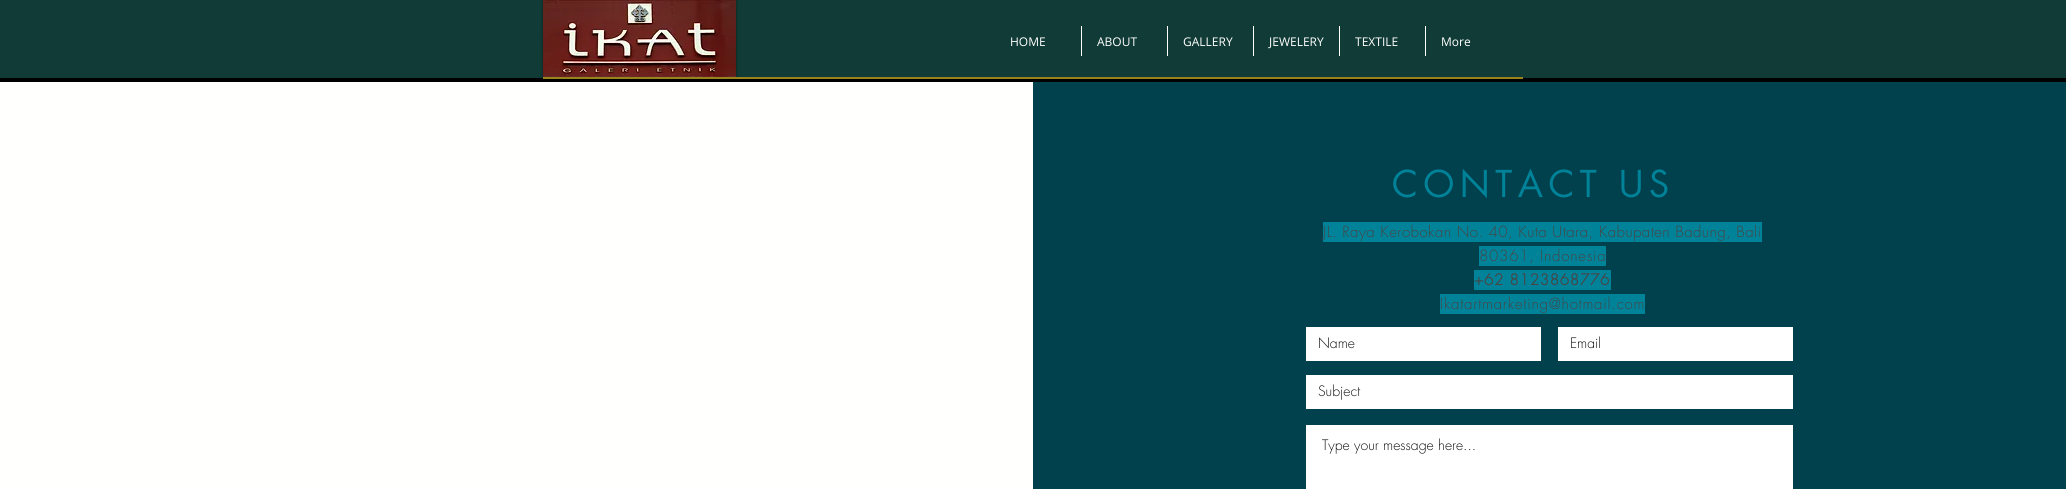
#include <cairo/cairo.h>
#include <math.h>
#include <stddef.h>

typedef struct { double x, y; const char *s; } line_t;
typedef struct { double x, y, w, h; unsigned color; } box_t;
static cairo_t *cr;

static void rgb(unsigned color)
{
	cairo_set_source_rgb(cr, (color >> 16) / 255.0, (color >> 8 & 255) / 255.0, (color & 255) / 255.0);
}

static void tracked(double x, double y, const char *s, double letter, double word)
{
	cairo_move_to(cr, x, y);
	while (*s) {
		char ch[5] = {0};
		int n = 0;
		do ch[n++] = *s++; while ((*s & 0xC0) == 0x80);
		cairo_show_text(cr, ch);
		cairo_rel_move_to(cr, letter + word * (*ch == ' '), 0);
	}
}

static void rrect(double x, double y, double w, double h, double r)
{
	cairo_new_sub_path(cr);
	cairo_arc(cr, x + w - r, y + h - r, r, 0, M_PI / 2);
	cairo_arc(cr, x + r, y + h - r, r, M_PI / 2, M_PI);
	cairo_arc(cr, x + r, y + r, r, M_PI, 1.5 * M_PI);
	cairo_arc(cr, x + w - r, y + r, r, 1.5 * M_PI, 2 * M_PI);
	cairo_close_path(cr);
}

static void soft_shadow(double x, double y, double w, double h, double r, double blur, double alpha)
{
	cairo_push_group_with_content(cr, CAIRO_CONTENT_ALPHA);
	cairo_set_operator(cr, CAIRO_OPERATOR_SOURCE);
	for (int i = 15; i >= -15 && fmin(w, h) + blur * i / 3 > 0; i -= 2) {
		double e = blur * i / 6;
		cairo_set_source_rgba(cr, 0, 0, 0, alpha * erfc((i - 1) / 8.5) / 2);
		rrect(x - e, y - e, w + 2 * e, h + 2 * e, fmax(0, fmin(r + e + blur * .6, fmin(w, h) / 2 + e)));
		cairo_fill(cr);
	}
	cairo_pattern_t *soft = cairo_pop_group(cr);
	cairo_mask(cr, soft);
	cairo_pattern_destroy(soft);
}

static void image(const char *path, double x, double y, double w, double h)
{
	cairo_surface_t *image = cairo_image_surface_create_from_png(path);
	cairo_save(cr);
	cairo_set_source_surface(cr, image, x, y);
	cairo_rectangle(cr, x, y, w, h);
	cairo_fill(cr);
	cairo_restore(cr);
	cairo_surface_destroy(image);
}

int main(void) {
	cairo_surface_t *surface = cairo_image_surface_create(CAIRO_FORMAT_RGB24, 2066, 489);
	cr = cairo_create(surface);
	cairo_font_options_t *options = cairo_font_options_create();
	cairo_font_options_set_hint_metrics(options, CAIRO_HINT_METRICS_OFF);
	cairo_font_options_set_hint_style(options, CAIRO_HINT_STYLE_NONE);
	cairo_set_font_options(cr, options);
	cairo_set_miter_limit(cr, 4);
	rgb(0x000000);
	cairo_paint(cr);
	rgb(0x113b36);
	cairo_rectangle(cr, 0, 0, 2066, 78);
	cairo_fill(cr);
	rgb(0x000000);
	soft_shadow(543, 1, 193, 78, 0, 1.5, 0.5);
	image("img/1.png", 543, 0, 193, 77);
	{
		static const box_t items[] = {
			{1081, 26, 1, 30, 0xffffff},
			{1167, 26, 1, 30, 0xffffff},
			{1253, 26, 1, 30, 0xffffff},
			{1339, 26, 1, 30, 0xffffff},
			{1425, 26, 1, 30, 0xffffff},
			{543, 77, 980, 2, 0x9a831b},
			{0, 82, 1033, 407, 0xfffffe},
			{1033, 82, 1033, 407, 0x00414d},
			{1323, 222, 439, 20, 0x008299},
			{1479, 246, 127, 20, 0x008299},
			{1474, 270, 137, 20, 0x008299},
			{1440, 294, 205, 20, 0x008299},
			{1306, 327, 235, 34, 0xffffff},
			{1558, 327, 235, 34, 0xffffff},
			{1306, 375, 487, 34, 0xffffff},
			{1306, 425, 487, 64, 0xffffff},
		};
		for (size_t i = 0; i < sizeof items / sizeof *items; i++) {
			rgb(items[i].color);
			cairo_rectangle(cr, items[i].x, items[i].y, items[i].w, items[i].h);
			cairo_fill(cr);
		}
	}
	cairo_select_font_face(cr, "Open Sans", CAIRO_FONT_SLANT_NORMAL, CAIRO_FONT_WEIGHT_NORMAL);
	cairo_set_font_size(cr, 12);
	{
		static const line_t items[] = {
			{1010, 46, "HOME"},
			{1097, 46, "ABOUT"},
			{1183, 46, "GALLERY"},
			{1269, 46, "JEWELERY"},
			{1355, 46, "TEXTILE"},
			{1441, 46, "More"},
		};
		for (size_t i = 0; i < sizeof items / sizeof *items; i++) {
			cairo_move_to(cr, items[i].x, items[i].y);
			cairo_show_text(cr, items[i].s);
		}
	}
	cairo_select_font_face(cr, "futura", CAIRO_FONT_SLANT_NORMAL, CAIRO_FONT_WEIGHT_NORMAL);
	cairo_set_font_size(cr, 36);
	rgb(0x008299);
	tracked(1392, 197, "CONTACT US", 5.5, 0);
	cairo_select_font_face(cr, "futura Light", CAIRO_FONT_SLANT_NORMAL, CAIRO_FONT_WEIGHT_NORMAL);
	cairo_set_font_size(cr, 15);
	rgb(0x464646);
	tracked(1323, 237, "JL. Raya Kerobokan No. 40, Kuta Utara, Kabupaten Badung, Bali", 0.45, 0);
	tracked(1479, 261, "80361, Indonesia", 0.75, 0);
	cairo_select_font_face(cr, "futura", CAIRO_FONT_SLANT_NORMAL, CAIRO_FONT_WEIGHT_BOLD);
	tracked(1474, 285, "+62 8123868776", 0.75, 0);
	cairo_select_font_face(cr, "futura Light", CAIRO_FONT_SLANT_NORMAL, CAIRO_FONT_WEIGHT_NORMAL);
	tracked(1440, 309, "Ikatartmarketing@hotmail.com", 0.75, 0);
	cairo_set_font_size(cr, 14);
	rgb(0x0f0f0f);
	{
		static const line_t items[] = {
			{1318, 348, "Name"},
			{1570, 348, "Email"},
			{1318, 396, "Subject"},
			{1322, 450, "Type your message here..."},
		};
		for (size_t i = 0; i < sizeof items / sizeof *items; i++) {
			cairo_move_to(cr, items[i].x, items[i].y);
			cairo_show_text(cr, items[i].s);
		}
	}
	cairo_surface_write_to_png(surface, "page.png");
	cairo_font_options_destroy(options);
	cairo_destroy(cr);
	cairo_surface_destroy(surface);
	return 0;
}
